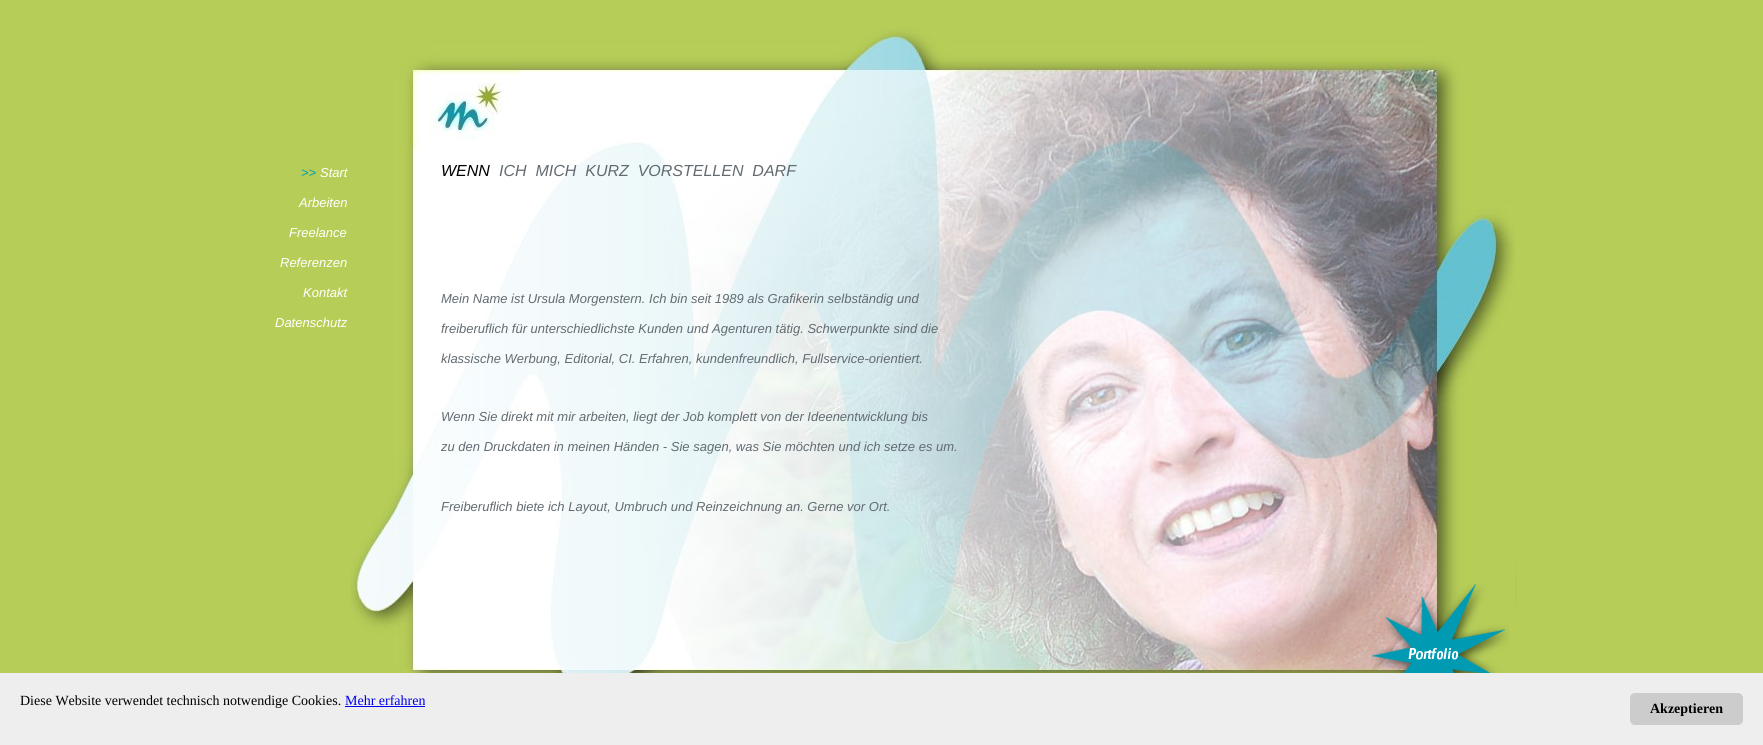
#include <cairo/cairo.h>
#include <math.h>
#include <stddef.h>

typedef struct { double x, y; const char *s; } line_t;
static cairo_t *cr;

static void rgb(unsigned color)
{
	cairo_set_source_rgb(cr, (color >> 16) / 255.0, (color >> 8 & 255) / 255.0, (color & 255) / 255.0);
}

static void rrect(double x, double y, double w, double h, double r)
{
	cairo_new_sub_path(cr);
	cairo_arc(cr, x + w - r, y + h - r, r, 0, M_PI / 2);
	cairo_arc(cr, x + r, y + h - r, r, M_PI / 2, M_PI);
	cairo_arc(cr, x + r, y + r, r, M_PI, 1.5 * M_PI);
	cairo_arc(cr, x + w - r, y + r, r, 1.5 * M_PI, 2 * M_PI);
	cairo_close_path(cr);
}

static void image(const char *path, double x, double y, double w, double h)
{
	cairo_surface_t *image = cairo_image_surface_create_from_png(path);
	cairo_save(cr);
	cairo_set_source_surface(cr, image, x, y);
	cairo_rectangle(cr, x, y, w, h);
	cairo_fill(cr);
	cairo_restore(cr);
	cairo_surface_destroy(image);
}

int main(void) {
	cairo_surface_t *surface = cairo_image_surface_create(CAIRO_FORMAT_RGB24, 1763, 745);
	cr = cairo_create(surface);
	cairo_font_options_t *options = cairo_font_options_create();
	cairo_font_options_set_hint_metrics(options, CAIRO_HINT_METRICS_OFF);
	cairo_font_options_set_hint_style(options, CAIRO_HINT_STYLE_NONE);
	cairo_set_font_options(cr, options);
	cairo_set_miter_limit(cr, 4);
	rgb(0xb6ce58);
	cairo_paint(cr);
	image("img/1.png", 350, 27, 1167, 646);
	image("img/2.png", 1371, 584, 138, 89);
	rgb(0xeeeeee);
	cairo_rectangle(cr, 0, 673, 1763, 72);
	cairo_fill(cr);
	rgb(0x0000ee);
	cairo_rectangle(cr, 345, 706, 80, 1);
	cairo_fill(cr);
	rgb(0xcccccc);
	rrect(1630, 693, 113, 32, 5);
	cairo_fill(cr);
	cairo_select_font_face(cr, "Liberation Sans", CAIRO_FONT_SLANT_ITALIC, CAIRO_FONT_WEIGHT_NORMAL);
	cairo_set_font_size(cr, 13);
	rgb(0x019bb3);
	cairo_move_to(cr, 301, 177);
	cairo_show_text(cr, ">>");
	rgb(0xffffff);
	{
		static const line_t items[] = {
			{320, 177, "Start"},
			{299, 207, "Arbeiten"},
			{289, 237, "Freelance"},
			{280, 267, "Referenzen"},
			{303, 297, "Kontakt"},
			{275, 327, "Datenschutz"},
		};
		for (size_t i = 0; i < sizeof items / sizeof *items; i++) {
			cairo_move_to(cr, items[i].x, items[i].y);
			cairo_show_text(cr, items[i].s);
		}
	}
	cairo_set_font_size(cr, 16);
	rgb(0x000000);
	cairo_move_to(cr, 441, 176);
	cairo_show_text(cr, "WENN");
	rgb(0x626b71);
	cairo_move_to(cr, 499, 176);
	cairo_show_text(cr, "ICH  MICH  KURZ  VORSTELLEN  DARF");
	cairo_set_font_size(cr, 13);
	{
		static const line_t items[] = {
			{441, 303, "Mein Name ist Ursula Morgenstern. Ich bin seit 1989 als Grafikerin selbständig und"},
			{441, 333, "freiberuflich für unterschiedlichste Kunden und Agenturen tätig. Schwerpunkte sind die"},
			{441, 363, "klassische Werbung, Editorial, CI. Erfahren, kundenfreundlich, Fullservice-orientiert."},
			{441, 421, "Wenn Sie direkt mit mir arbeiten, liegt der Job komplett von der Ideenentwicklung bis"},
			{441, 451, "zu den Druckdaten in meinen Händen - Sie sagen, was Sie möchten und ich setze es um."},
			{441, 511, "Freiberuflich biete ich Layout, Umbruch und Reinzeichnung an. Gerne vor Ort."},
		};
		for (size_t i = 0; i < sizeof items / sizeof *items; i++) {
			cairo_move_to(cr, items[i].x, items[i].y);
			cairo_show_text(cr, items[i].s);
		}
	}
	cairo_select_font_face(cr, "Liberation Serif", CAIRO_FONT_SLANT_NORMAL, CAIRO_FONT_WEIGHT_NORMAL);
	cairo_set_font_size(cr, 14);
	rgb(0x000000);
	cairo_move_to(cr, 20, 705);
	cairo_show_text(cr, "Diese Website verwendet technisch notwendige Cookies.");
	rgb(0x0000ee);
	cairo_move_to(cr, 345, 705);
	cairo_show_text(cr, "Mehr erfahren");
	cairo_select_font_face(cr, "Liberation Serif", CAIRO_FONT_SLANT_NORMAL, CAIRO_FONT_WEIGHT_BOLD);
	rgb(0x000000);
	cairo_move_to(cr, 1650, 713);
	cairo_show_text(cr, "Akzeptieren");
	cairo_surface_write_to_png(surface, "page.png");
	cairo_font_options_destroy(options);
	cairo_destroy(cr);
	cairo_surface_destroy(surface);
	return 0;
}
